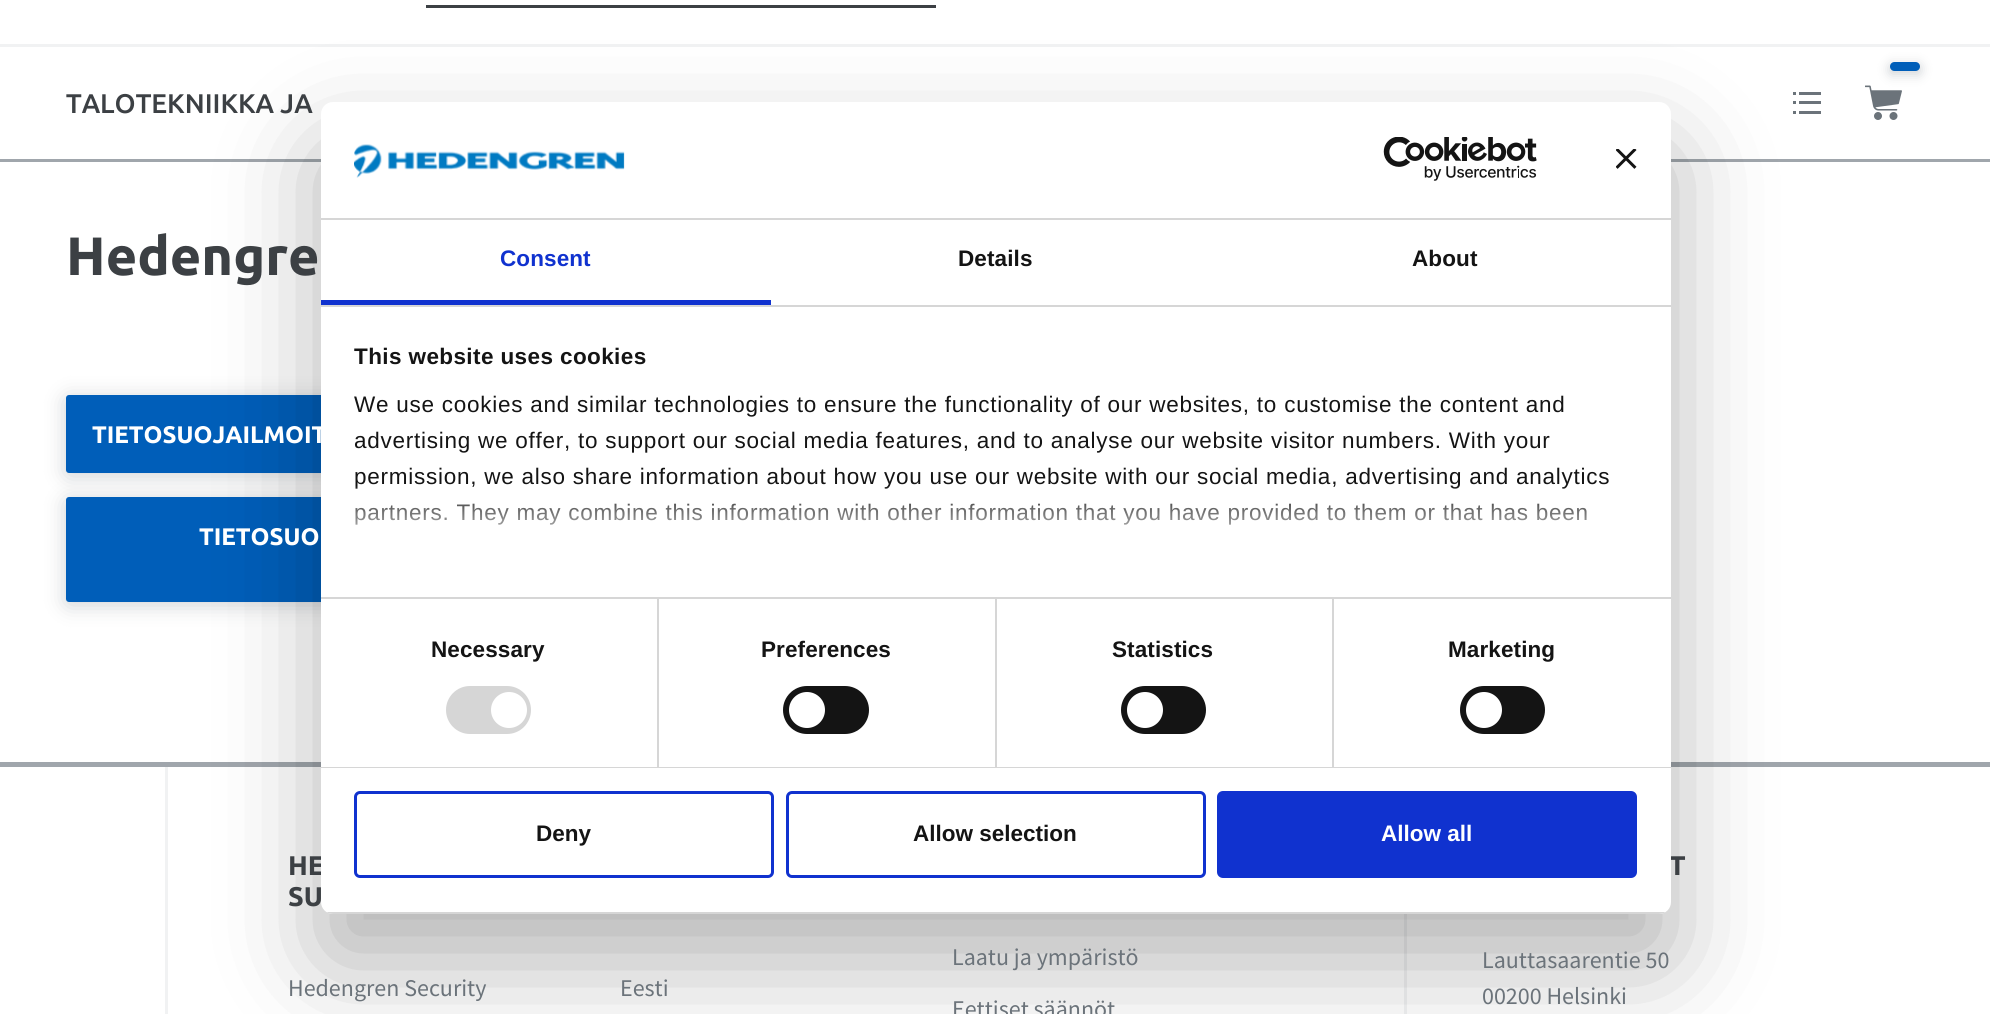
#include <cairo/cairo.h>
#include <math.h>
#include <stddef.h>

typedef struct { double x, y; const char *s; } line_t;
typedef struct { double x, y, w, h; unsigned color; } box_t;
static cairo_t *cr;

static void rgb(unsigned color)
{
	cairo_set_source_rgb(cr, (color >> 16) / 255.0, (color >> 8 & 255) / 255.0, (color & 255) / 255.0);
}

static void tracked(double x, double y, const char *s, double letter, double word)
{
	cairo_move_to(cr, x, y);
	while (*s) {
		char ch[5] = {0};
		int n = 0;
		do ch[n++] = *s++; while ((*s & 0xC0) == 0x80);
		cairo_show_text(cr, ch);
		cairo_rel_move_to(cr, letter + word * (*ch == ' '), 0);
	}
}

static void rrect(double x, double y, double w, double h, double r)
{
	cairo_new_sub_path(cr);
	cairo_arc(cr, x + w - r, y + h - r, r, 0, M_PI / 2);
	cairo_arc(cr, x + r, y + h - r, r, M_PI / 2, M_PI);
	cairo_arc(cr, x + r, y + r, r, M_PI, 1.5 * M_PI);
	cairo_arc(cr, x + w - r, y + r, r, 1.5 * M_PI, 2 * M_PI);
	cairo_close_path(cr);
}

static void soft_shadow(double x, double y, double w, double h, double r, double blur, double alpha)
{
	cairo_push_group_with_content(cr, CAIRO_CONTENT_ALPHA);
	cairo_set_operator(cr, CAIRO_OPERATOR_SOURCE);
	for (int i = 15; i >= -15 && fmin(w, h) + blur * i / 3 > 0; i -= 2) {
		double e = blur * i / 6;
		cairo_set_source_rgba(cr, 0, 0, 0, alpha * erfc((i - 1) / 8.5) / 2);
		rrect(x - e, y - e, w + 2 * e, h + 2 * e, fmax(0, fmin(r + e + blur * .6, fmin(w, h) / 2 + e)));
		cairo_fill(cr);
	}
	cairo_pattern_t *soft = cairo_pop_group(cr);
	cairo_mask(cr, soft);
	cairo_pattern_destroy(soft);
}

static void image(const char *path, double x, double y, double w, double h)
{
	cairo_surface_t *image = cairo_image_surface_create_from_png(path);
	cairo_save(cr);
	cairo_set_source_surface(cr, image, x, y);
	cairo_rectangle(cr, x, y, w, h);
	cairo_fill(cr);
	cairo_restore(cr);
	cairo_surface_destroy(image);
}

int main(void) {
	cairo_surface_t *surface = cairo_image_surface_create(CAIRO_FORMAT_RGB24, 1990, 1014);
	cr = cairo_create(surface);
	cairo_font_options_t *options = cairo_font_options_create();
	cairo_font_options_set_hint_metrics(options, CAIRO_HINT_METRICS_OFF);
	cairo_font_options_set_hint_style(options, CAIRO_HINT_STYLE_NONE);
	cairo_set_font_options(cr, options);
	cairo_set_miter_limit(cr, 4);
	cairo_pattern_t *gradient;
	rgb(0xffffff);
	cairo_paint(cr);
	{
		static const box_t items[] = {
			{0, 44, 1990, 3, 0xf1f2f3},
			{426, 5, 510, 3, 0x3c4044},
			{0, 159, 1990, 3, 0xa0a6ac},
			{1793, 92, 3, 3, 0x6b737a},
			{1799, 92, 22, 3, 0x6b737a},
			{1793, 101, 3, 3, 0x6b737a},
			{1799, 101, 22, 3, 0x6b737a},
			{1793, 111, 3, 3, 0x6b737a},
			{1799, 111, 22, 3, 0x6b737a},
		};
		for (size_t i = 0; i < sizeof items / sizeof *items; i++) {
			rgb(items[i].color);
			cairo_rectangle(cr, items[i].x, items[i].y, items[i].w, items[i].h);
			cairo_fill(cr);
		}
	}
	image("img/1.png", 1865, 85, 37, 35);
	rgb(0xa0a6ac);
	soft_shadow(1890, 65, 30, 9, 4.5, 6, 0.5);
	rgb(0x005eb9);
	rrect(1890, 62, 30, 9, 4.5);
	cairo_fill(cr);
	rgb(0xa0a6ac);
	soft_shadow(66, 398, 479, 78, 3, 10.5, 0.5);
	rgb(0x005eb9);
	rrect(66, 395, 479, 78, 3);
	cairo_fill(cr);
	rgb(0xa0a6ac);
	soft_shadow(66, 500, 1200, 105, 3, 10.5, 0.5);
	rgb(0x005eb9);
	rrect(66, 497, 1200, 105, 3);
	cairo_fill(cr);
	{
		static const box_t items[] = {
			{0, 762, 1990, 5, 0xa0a6ac},
			{165, 767, 3, 247, 0xf1f2f3},
			{1404, 914, 3, 100, 0xf1f2f3},
		};
		for (size_t i = 0; i < sizeof items / sizeof *items; i++) {
			rgb(items[i].color);
			cairo_rectangle(cr, items[i].x, items[i].y, items[i].w, items[i].h);
			cairo_fill(cr);
		}
	}
	rgb(0x000000);
	soft_shadow(321, 150, 1350, 812, 12, 51, 0.3);
	cairo_select_font_face(cr, "Ubuntu Medium", CAIRO_FONT_SLANT_NORMAL, CAIRO_FONT_WEIGHT_NORMAL);
	cairo_set_font_size(cr, 27);
	rgb(0x3c4044);
	cairo_move_to(cr, 66, 113);
	cairo_show_text(cr, "TALOTEKNIIKKA JA");
	cairo_select_font_face(cr, "Ubuntu", CAIRO_FONT_SLANT_NORMAL, CAIRO_FONT_WEIGHT_BOLD);
	cairo_set_font_size(cr, 54);
	cairo_move_to(cr, 66, 275);
	cairo_show_text(cr, "Hedengre");
	cairo_set_font_size(cr, 24);
	rgb(0xffffff);
	cairo_move_to(cr, 92, 443);
	cairo_show_text(cr, "TIETOSUOJAILMOIT");
	cairo_move_to(cr, 199, 545);
	cairo_show_text(cr, "TIETOSUO");
	cairo_set_font_size(cr, 27);
	rgb(0x3c4044);
	cairo_move_to(cr, 288, 875);
	cairo_show_text(cr, "HE");
	cairo_move_to(cr, 288, 906);
	cairo_show_text(cr, "SU");
	cairo_select_font_face(cr, "Source Sans Pro", CAIRO_FONT_SLANT_NORMAL, CAIRO_FONT_WEIGHT_NORMAL);
	cairo_set_font_size(cr, 24);
	rgb(0x6b737a);
	{
		static const line_t items[] = {
			{288, 996, "Hedengren Security"},
			{620, 996, "Eesti"},
			{952, 965, "Laatu ja ympäristö"},
			{952, 1017, "Eettiset säännöt"},
		};
		for (size_t i = 0; i < sizeof items / sizeof *items; i++) {
			cairo_move_to(cr, items[i].x, items[i].y);
			cairo_show_text(cr, items[i].s);
		}
	}
	cairo_select_font_face(cr, "Ubuntu", CAIRO_FONT_SLANT_NORMAL, CAIRO_FONT_WEIGHT_BOLD);
	cairo_set_font_size(cr, 27);
	rgb(0x3c4044);
	cairo_move_to(cr, 1669, 875);
	cairo_show_text(cr, "T");
	cairo_select_font_face(cr, "Source Sans Pro", CAIRO_FONT_SLANT_NORMAL, CAIRO_FONT_WEIGHT_NORMAL);
	cairo_set_font_size(cr, 24);
	rgb(0x6b737a);
	cairo_move_to(cr, 1482, 968);
	cairo_show_text(cr, "Lauttasaarentie 50");
	cairo_move_to(cr, 1482, 1004);
	cairo_show_text(cr, "00200 Helsinki");
	rgb(0xffffff);
	rrect(321, 102, 1350, 812, 12);
	cairo_fill(cr);
	rgb(0xd6d6d6);
	cairo_rectangle(cr, 321, 218, 1350, 2);
	cairo_fill(cr);
	image("img/2.png", 354, 144, 271, 34);
	image("img/3.png", 1383, 137, 154, 44);
	image("img/4.png", 1616, 149, 21, 20);
	cairo_rectangle(cr, 321, 305, 1350, 2);
	cairo_fill(cr);
	rgb(0x1032cf);
	cairo_rectangle(cr, 321, 300, 450, 5);
	cairo_fill(cr);
	cairo_select_font_face(cr, "Liberation Sans", CAIRO_FONT_SLANT_NORMAL, CAIRO_FONT_WEIGHT_BOLD);
	cairo_set_font_size(cr, 22.5);
	tracked(500, 266, "Consent", 0.1, 0);
	rgb(0x141414);
	tracked(958, 266, "Details", 0.1, 0);
	tracked(1412, 266, "About", 0.1, 0);
	rgb(0xd6d6d6);
	cairo_rectangle(cr, 321, 597, 1350, 2);
	cairo_fill(cr);
	rgb(0x141414);
	tracked(354, 364, "This website uses cookies", 0.4, 0);
	cairo_select_font_face(cr, "Liberation Sans", CAIRO_FONT_SLANT_NORMAL, CAIRO_FONT_WEIGHT_NORMAL);
	{
		static const line_t items[] = {
			{354, 412, "We use cookies and similar technologies to ensure the functionality of our websites, to customise the content and"},
			{354, 448, "advertising we offer, to support our social media features, and to analyse our website visitor numbers. With your"},
			{354, 484, "permission, we also share information about how you use our website with our social media, advertising and analytics"},
			{354, 520, "partners. They may combine this information with other information that you have provided to them or that has been"},
		};
		for (size_t i = 0; i < sizeof items / sizeof *items; i++) {
			tracked(items[i].x, items[i].y, items[i].s, 0.75, 0);
		}
	}
	gradient = cairo_pattern_create_linear(980, 596, 980, 484);
	cairo_pattern_add_color_stop_rgba(gradient, 0, 1, 1, 1, 1);
	cairo_pattern_add_color_stop_rgba(gradient, 0.5, 1, 1, 1, 0.8);
	cairo_pattern_add_color_stop_rgba(gradient, 1, 1, 1, 1, 0);
	cairo_set_source(cr, gradient);
	cairo_pattern_destroy(gradient);
	cairo_rectangle(cr, 355, 486, 1232, 39);
	cairo_fill(cr);
	rgb(0xd6d6d6);
	cairo_rectangle(cr, 321, 767, 1350, 1);
	cairo_fill(cr);
	cairo_rectangle(cr, 657, 599, 2, 168);
	cairo_fill(cr);
	cairo_select_font_face(cr, "Liberation Sans", CAIRO_FONT_SLANT_NORMAL, CAIRO_FONT_WEIGHT_BOLD);
	rgb(0x141414);
	tracked(431, 657, "Necessary", 0.1, 0);
	rgb(0xd6d6d6);
	rrect(446, 686, 85, 48, 24);
	cairo_fill(cr);
	rgb(0xffffff);
	cairo_arc(cr, 509, 710, 18, 0, 2 * M_PI);
	cairo_fill(cr);
	rgb(0xd6d6d6);
	cairo_rectangle(cr, 995, 599, 2, 168);
	cairo_fill(cr);
	rgb(0x141414);
	tracked(761, 657, "Preferences", 0.1, 0);
	rrect(783, 686, 86, 48, 24);
	cairo_fill(cr);
	rgb(0xffffff);
	cairo_arc(cr, 807, 710, 18, 0, 2 * M_PI);
	cairo_fill(cr);
	rgb(0xd6d6d6);
	cairo_rectangle(cr, 1332, 599, 2, 168);
	cairo_fill(cr);
	rgb(0x141414);
	tracked(1112, 657, "Statistics", 0.1, 0);
	rrect(1121, 686, 85, 48, 24);
	cairo_fill(cr);
	rgb(0xffffff);
	cairo_arc(cr, 1145, 710, 18, 0, 2 * M_PI);
	cairo_fill(cr);
	rgb(0x141414);
	tracked(1448, 657, "Marketing", 0.1, 0);
	rrect(1460, 686, 85, 48, 24);
	cairo_fill(cr);
	rgb(0xffffff);
	cairo_arc(cr, 1484, 710, 18, 0, 2 * M_PI);
	cairo_fill(cr);
	cairo_save(cr);
	rrect(321, 102, 1350, 812, 12);
	cairo_clip(cr);
	rgb(0xd6d6d6);
	cairo_rectangle(cr, 321, 912, 1350, 2);
	cairo_fill(cr);
	cairo_restore(cr);
	rrect(355.5, 792.5, 417, 84, 4.5);
	rgb(0x1032cf);
	cairo_set_line_width(cr, 3);
	cairo_stroke(cr);
	rgb(0x141414);
	cairo_move_to(cr, 536, 841);
	cairo_show_text(cr, "Deny");
	rrect(787.5, 792.5, 417, 84, 4.5);
	rgb(0x1032cf);
	cairo_stroke(cr);
	rgb(0x141414);
	cairo_move_to(cr, 913, 841);
	cairo_show_text(cr, "Allow selection");
	rgb(0x1032cf);
	rrect(1218.5, 792.5, 417, 84, 4.5);
	cairo_fill_preserve(cr);
	cairo_stroke(cr);
	rgb(0xffffff);
	cairo_move_to(cr, 1381, 841);
	cairo_show_text(cr, "Allow all");
	cairo_surface_write_to_png(surface, "page.png");
	cairo_font_options_destroy(options);
	cairo_destroy(cr);
	cairo_surface_destroy(surface);
	return 0;
}
